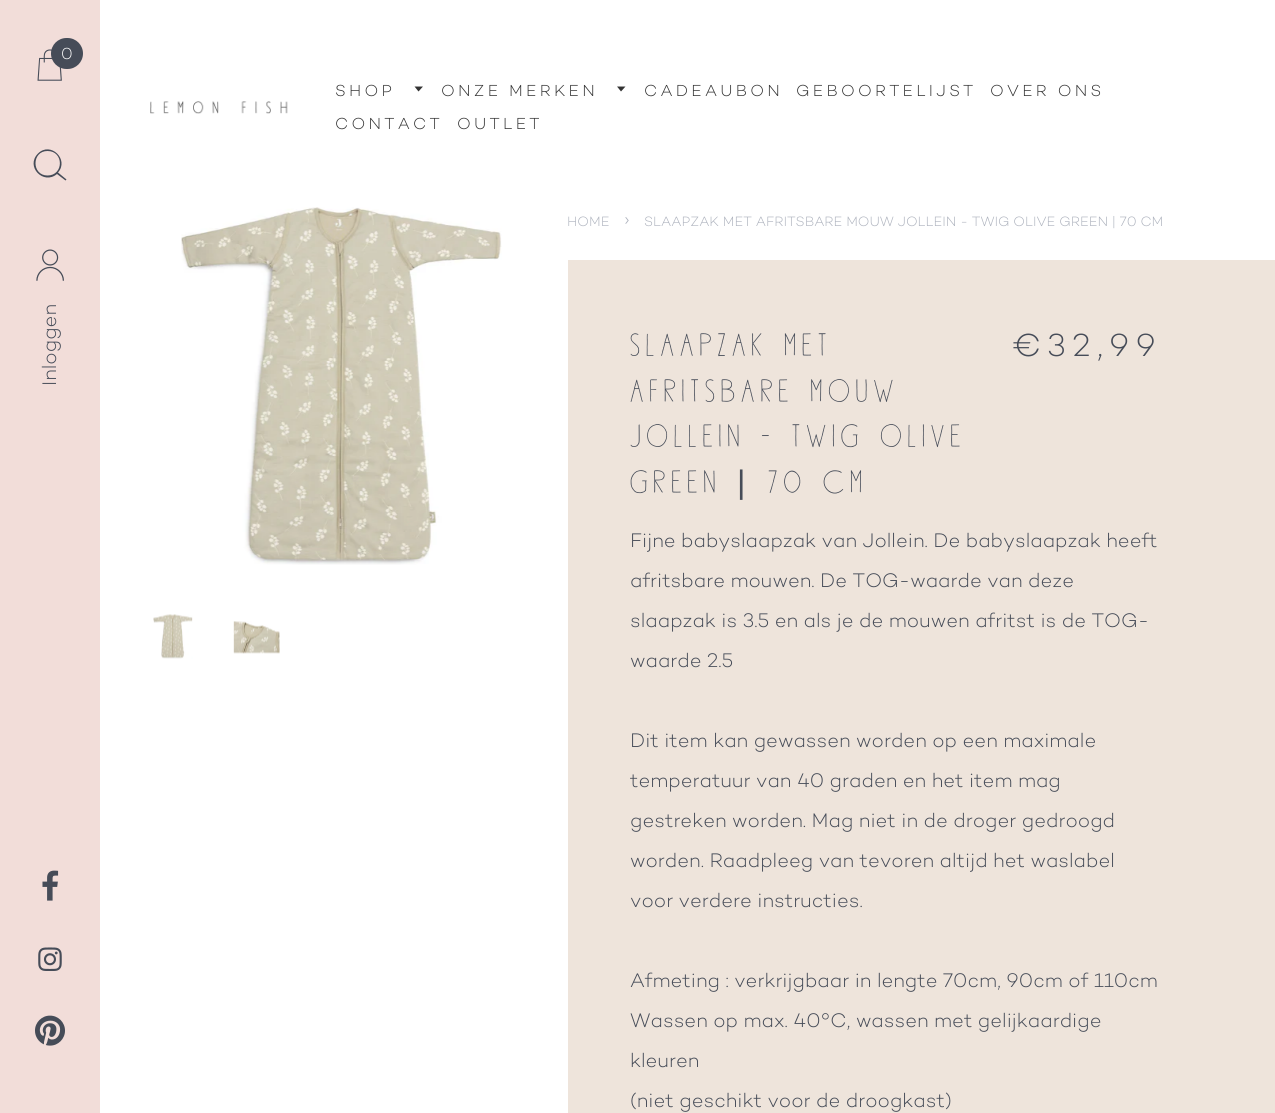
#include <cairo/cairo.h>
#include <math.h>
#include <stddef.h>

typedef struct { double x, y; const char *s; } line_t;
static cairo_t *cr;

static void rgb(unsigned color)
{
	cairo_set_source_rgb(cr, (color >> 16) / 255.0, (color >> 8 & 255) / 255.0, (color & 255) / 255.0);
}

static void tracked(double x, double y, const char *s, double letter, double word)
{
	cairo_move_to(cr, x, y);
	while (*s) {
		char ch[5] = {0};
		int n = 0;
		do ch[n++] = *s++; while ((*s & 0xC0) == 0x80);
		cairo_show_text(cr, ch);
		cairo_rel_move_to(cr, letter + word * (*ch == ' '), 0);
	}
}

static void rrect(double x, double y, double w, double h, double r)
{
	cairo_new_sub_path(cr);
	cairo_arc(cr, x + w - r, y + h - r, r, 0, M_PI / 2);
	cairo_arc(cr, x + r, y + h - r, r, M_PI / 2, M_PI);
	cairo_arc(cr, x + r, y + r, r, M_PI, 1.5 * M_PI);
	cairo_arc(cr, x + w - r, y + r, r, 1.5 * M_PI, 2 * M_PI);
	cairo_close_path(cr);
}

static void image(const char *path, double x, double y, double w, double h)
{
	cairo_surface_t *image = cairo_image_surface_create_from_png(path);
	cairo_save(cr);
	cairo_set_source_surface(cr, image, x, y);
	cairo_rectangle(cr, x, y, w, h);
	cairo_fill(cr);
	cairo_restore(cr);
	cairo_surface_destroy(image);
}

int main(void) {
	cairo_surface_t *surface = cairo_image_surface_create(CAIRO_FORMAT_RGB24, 1275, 1113);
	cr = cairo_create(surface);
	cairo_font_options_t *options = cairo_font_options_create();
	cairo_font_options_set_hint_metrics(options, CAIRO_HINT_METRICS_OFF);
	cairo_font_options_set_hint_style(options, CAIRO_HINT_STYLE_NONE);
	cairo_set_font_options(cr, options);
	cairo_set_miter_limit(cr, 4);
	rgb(0xffffff);
	cairo_paint(cr);
	rgb(0xf2ddd9);
	cairo_rectangle(cr, 0, 0, 100, 1113);
	cairo_fill(cr);
	image("img/1.png", 37, 49, 25, 32);
	rgb(0x464c58);
	rrect(51, 38, 32, 31, 15.5);
	cairo_fill(cr);
	cairo_new_path(cr);
	cairo_move_to(cr, 58, 172.5);
	cairo_curve_to(cr, 69.5, 159.5, 50.5, 141, 38, 153.5);
	cairo_curve_to(cr, 25, 166.5, 43.5, 185.5, 57, 174);
	cairo_line_to(cr, 65.5, 180.5);
	cairo_line_to(cr, 66.5, 179.5);
	cairo_close_path(cr);
	cairo_move_to(cr, 47.5, 175.5);
	cairo_curve_to(cr, 31.5, 175.5, 31.5, 151, 47.5, 151);
	cairo_curve_to(cr, 64, 151, 64, 175.5, 47.5, 175.5);
	cairo_close_path(cr);
	cairo_fill(cr);
	image("img/2.png", 36, 249, 28, 32);
	image("img/3.png", 42, 870, 17, 31);
	image("img/4.png", 38, 947, 24, 24);
	image("img/5.png", 35, 1015, 30, 31);
	image("img/6.png", 150, 101, 138, 13);
	rgb(0x333333);
	cairo_new_path(cr);
	cairo_move_to(cr, 414.5, 86.5);
	cairo_line_to(cr, 418.5, 91.5);
	cairo_line_to(cr, 423, 86.5);
	cairo_close_path(cr);
	cairo_fill(cr);
	cairo_new_path(cr);
	cairo_move_to(cr, 617, 86.5);
	cairo_line_to(cr, 621, 91.5);
	cairo_line_to(cr, 625.5, 86.5);
	cairo_close_path(cr);
	cairo_fill(cr);
	image("img/7.png", 181, 207, 321, 358);
	image("img/8.png", 153, 614, 40, 45);
	image("img/9.png", 233, 621, 47, 33);
	rgb(0xeee4db);
	cairo_rectangle(cr, 568, 260, 707, 853);
	cairo_fill(cr);
	cairo_select_font_face(cr, "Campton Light", CAIRO_FONT_SLANT_NORMAL, CAIRO_FONT_WEIGHT_NORMAL);
	cairo_set_font_size(cr, 16.25);
	rgb(0xffffff);
	cairo_move_to(cr, 61, 59);
	cairo_show_text(cr, "0");
	cairo_set_font_size(cr, 20);
	rgb(0x464c58);
	cairo_save(cr);
	cairo_translate(cr, 56, 386);
	cairo_rotate(cr, -90 * M_PI / 180);
	cairo_move_to(cr, 0, 0);
	cairo_show_text(cr, "Inloggen");
	cairo_restore(cr);
	cairo_set_font_size(cr, 16.25);
	rgb(0x333333);
	{
		static const line_t items[] = {
			{335, 96, "SHOP"},
			{441, 96, "ONZE MERKEN"},
			{644, 96, "CADEAUBON"},
			{796, 96, "GEBOORTELIJST"},
			{990, 96, "OVER ONS"},
			{335, 129, "CONTACT"},
			{457, 129, "OUTLET"},
		};
		for (size_t i = 0; i < sizeof items / sizeof *items; i++) {
			tracked(items[i].x, items[i].y, items[i].s, 3.25, 0);
		}
	}
	cairo_set_font_size(cr, 13.75);
	rgb(0xadb2bd);
	cairo_move_to(cr, 567, 226);
	cairo_show_text(cr, "HOME");
	cairo_set_font_size(cr, 22);
	cairo_move_to(cr, 624, 226);
	cairo_show_text(cr, "›");
	cairo_set_font_size(cr, 13.75);
	cairo_move_to(cr, 644, 226);
	cairo_show_text(cr, "SLAAPZAK MET AFRITSBARE MOUW JOLLEIN - TWIG OLIVE GREEN | 70 CM");
	cairo_select_font_face(cr, "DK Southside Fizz", CAIRO_FONT_SLANT_NORMAL, CAIRO_FONT_WEIGHT_NORMAL);
	cairo_set_font_size(cr, 32.5);
	rgb(0x464c58);
	{
		static const line_t items[] = {
			{630, 356, "SLAAPZAK MET"},
			{630, 402, "AFRITSBARE MOUW"},
			{630, 447, "JOLLEIN - TWIG OLIVE"},
			{630, 493, "GREEN"},
		};
		for (size_t i = 0; i < sizeof items / sizeof *items; i++) {
			tracked(items[i].x, items[i].y, items[i].s, 6.25, 0);
		}
	}
	cairo_select_font_face(cr, "Liberation Sans", CAIRO_FONT_SLANT_NORMAL, CAIRO_FONT_WEIGHT_NORMAL);
	tracked(737, 493, "|", 6.25, 0);
	cairo_select_font_face(cr, "DK Southside Fizz", CAIRO_FONT_SLANT_NORMAL, CAIRO_FONT_WEIGHT_NORMAL);
	tracked(768, 493, "70 CM", 6.25, 0);
	cairo_select_font_face(cr, "Campton Light", CAIRO_FONT_SLANT_NORMAL, CAIRO_FONT_WEIGHT_NORMAL);
	tracked(1012, 356, "€32,99", 6.25, 0);
	cairo_set_font_size(cr, 20);
	{
		static const line_t items[] = {
			{630, 547, "Fijne babyslaapzak van Jollein. De babyslaapzak heeft"},
			{630, 587, "afritsbare mouwen. De TOG-waarde van deze"},
			{630, 627, "slaapzak is 3.5 en als je de mouwen afritst is de TOG-"},
			{630, 667, "waarde 2.5"},
			{630, 747, "Dit item kan gewassen worden op een maximale"},
			{630, 787, "temperatuur van 40 graden en het item mag"},
			{630, 827, "gestreken worden. Mag niet in de droger gedroogd"},
			{630, 867, "worden. Raadpleeg van tevoren altijd het waslabel"},
			{630, 907, "voor verdere instructies."},
			{630, 987, "Afmeting : verkrijgbaar in lengte 70cm, 90cm of 110cm"},
			{630, 1027, "Wassen op max. 40°C, wassen met gelijkaardige"},
			{630, 1067, "kleuren"},
			{630, 1107, "(niet geschikt voor de droogkast)"},
		};
		for (size_t i = 0; i < sizeof items / sizeof *items; i++) {
			cairo_move_to(cr, items[i].x, items[i].y);
			cairo_show_text(cr, items[i].s);
		}
	}
	cairo_surface_write_to_png(surface, "page.png");
	cairo_font_options_destroy(options);
	cairo_destroy(cr);
	cairo_surface_destroy(surface);
	return 0;
}
